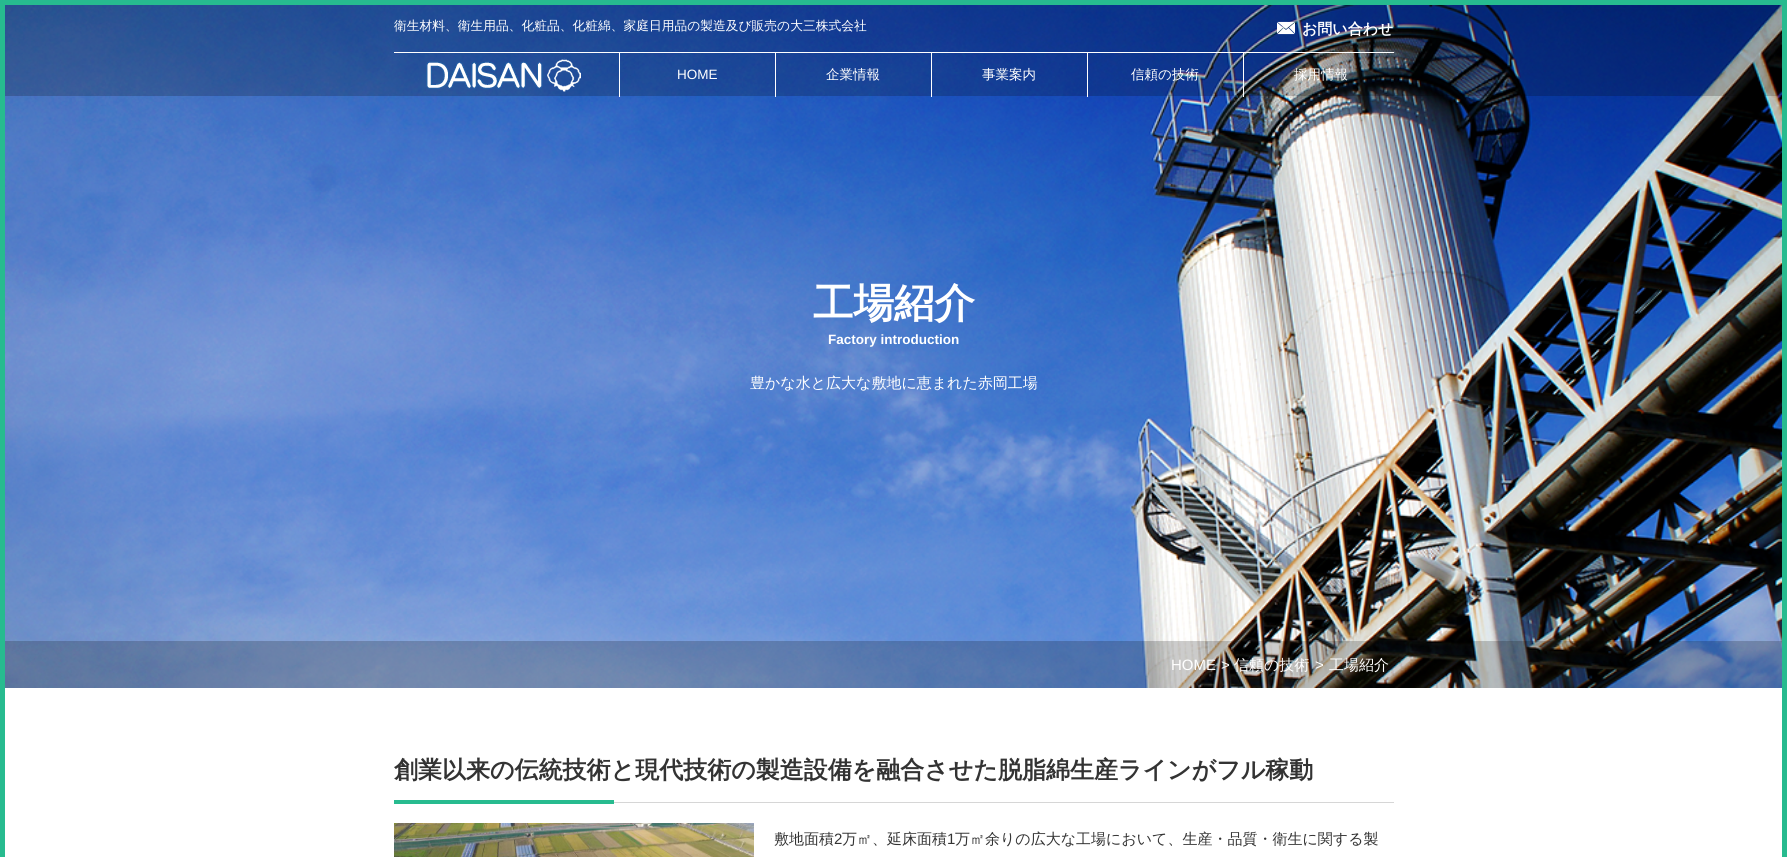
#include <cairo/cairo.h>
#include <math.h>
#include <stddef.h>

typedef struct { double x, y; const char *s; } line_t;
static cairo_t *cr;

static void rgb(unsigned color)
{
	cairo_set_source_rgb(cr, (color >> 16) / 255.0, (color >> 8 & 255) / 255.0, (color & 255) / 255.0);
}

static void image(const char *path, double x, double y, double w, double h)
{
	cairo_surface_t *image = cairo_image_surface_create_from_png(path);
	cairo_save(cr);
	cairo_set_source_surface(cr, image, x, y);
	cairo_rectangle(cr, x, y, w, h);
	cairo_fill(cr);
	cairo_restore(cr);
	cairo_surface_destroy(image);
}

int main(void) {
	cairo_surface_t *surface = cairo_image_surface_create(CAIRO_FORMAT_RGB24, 1787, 857);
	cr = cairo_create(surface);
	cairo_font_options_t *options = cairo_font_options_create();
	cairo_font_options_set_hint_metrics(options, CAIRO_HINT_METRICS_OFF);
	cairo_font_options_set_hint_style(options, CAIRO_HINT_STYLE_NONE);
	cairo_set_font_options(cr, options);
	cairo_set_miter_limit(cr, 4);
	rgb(0xffffff);
	cairo_paint(cr);
	cairo_rectangle(cr, 2.5, 2.5, 1782, 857);
	rgb(0x27bb8f);
	cairo_set_line_width(cr, 5);
	cairo_stroke(cr);
	image("img/1.png", 5, 5, 1777, 683);
	cairo_set_source_rgba(cr, 0, 0, 0, 0.2);
	cairo_rectangle(cr, 5, 5, 1777, 91);
	cairo_fill(cr);
	rgb(0xffffff);
	cairo_rectangle(cr, 394, 52, 1000, 1);
	cairo_fill(cr);
	image("img/2.png", 1277, 21, 18, 14);
	image("img/3.png", 426, 58, 155, 34);
	cairo_rectangle(cr, 619, 53, 1, 44);
	cairo_fill(cr);
	cairo_rectangle(cr, 775, 53, 1, 44);
	cairo_fill(cr);
	cairo_rectangle(cr, 931, 53, 1, 44);
	cairo_fill(cr);
	cairo_rectangle(cr, 1087, 53, 1, 44);
	cairo_fill(cr);
	cairo_rectangle(cr, 1243, 53, 1, 44);
	cairo_fill(cr);
	cairo_set_source_rgba(cr, 0, 0, 0, 0.2);
	cairo_rectangle(cr, 5, 641, 1777, 47);
	cairo_fill(cr);
	rgb(0xd6d6d6);
	cairo_rectangle(cr, 614, 802, 780, 1);
	cairo_fill(cr);
	rgb(0x27bb8f);
	cairo_rectangle(cr, 394, 800, 220, 4);
	cairo_fill(cr);
	image("img/4.png", 394, 823, 360, 34);
	cairo_save(cr);
	cairo_rectangle(cr, 394, 5, 1000, 47);
	cairo_clip(cr);
	cairo_select_font_face(cr, "WenQuanYi Zen Hei Medium", CAIRO_FONT_SLANT_NORMAL, CAIRO_FONT_WEIGHT_NORMAL);
	cairo_set_font_size(cr, 12.75);
	rgb(0xffffff);
	cairo_move_to(cr, 394, 30);
	cairo_show_text(cr, "衛生材料、衛生用品、化粧品、化粧綿、家庭日用品の製造及び販売の大三株式会社");
	cairo_restore(cr);
	cairo_select_font_face(cr, "WenQuanYi Zen Hei", CAIRO_FONT_SLANT_NORMAL, CAIRO_FONT_WEIGHT_BOLD);
	cairo_set_font_size(cr, 15);
	rgb(0xffffff);
	cairo_move_to(cr, 1302, 34);
	cairo_show_text(cr, "お問い合わせ");
	cairo_select_font_face(cr, "Liberation Sans", CAIRO_FONT_SLANT_NORMAL, CAIRO_FONT_WEIGHT_NORMAL);
	cairo_set_font_size(cr, 13.5);
	cairo_move_to(cr, 677, 79);
	cairo_show_text(cr, "HOME");
	cairo_select_font_face(cr, "WenQuanYi Zen Hei Medium", CAIRO_FONT_SLANT_NORMAL, CAIRO_FONT_WEIGHT_NORMAL);
	{
		static const line_t items[] = {
			{826, 79, "企業情報"},
			{982, 79, "事業案内"},
			{1131, 79, "信頼の技術"},
			{1294, 79, "採用情報"},
		};
		for (size_t i = 0; i < sizeof items / sizeof *items; i++) {
			cairo_move_to(cr, items[i].x, items[i].y);
			cairo_show_text(cr, items[i].s);
		}
	}
	cairo_select_font_face(cr, "WenQuanYi Zen Hei", CAIRO_FONT_SLANT_NORMAL, CAIRO_FONT_WEIGHT_BOLD);
	cairo_set_font_size(cr, 40.5);
	cairo_move_to(cr, 813, 317);
	cairo_show_text(cr, "工場紹介");
	cairo_select_font_face(cr, "Liberation Sans", CAIRO_FONT_SLANT_NORMAL, CAIRO_FONT_WEIGHT_BOLD);
	cairo_set_font_size(cr, 13.5);
	cairo_move_to(cr, 828, 344);
	cairo_show_text(cr, "Factory introduction");
	cairo_select_font_face(cr, "WenQuanYi Zen Hei Medium", CAIRO_FONT_SLANT_NORMAL, CAIRO_FONT_WEIGHT_NORMAL);
	cairo_set_font_size(cr, 15);
	cairo_move_to(cr, 750, 388);
	cairo_show_text(cr, "豊かな水と広大な敷地に恵まれた赤岡工場");
	cairo_select_font_face(cr, "Liberation Sans", CAIRO_FONT_SLANT_NORMAL, CAIRO_FONT_WEIGHT_NORMAL);
	cairo_move_to(cr, 1171, 670);
	cairo_show_text(cr, "HOME");
	cairo_move_to(cr, 1221, 670);
	cairo_show_text(cr, ">");
	cairo_select_font_face(cr, "WenQuanYi Zen Hei Medium", CAIRO_FONT_SLANT_NORMAL, CAIRO_FONT_WEIGHT_NORMAL);
	cairo_move_to(cr, 1234, 670);
	cairo_show_text(cr, "信頼の技術");
	cairo_select_font_face(cr, "Liberation Sans", CAIRO_FONT_SLANT_NORMAL, CAIRO_FONT_WEIGHT_NORMAL);
	cairo_move_to(cr, 1315, 670);
	cairo_show_text(cr, ">");
	cairo_select_font_face(cr, "WenQuanYi Zen Hei Medium", CAIRO_FONT_SLANT_NORMAL, CAIRO_FONT_WEIGHT_NORMAL);
	cairo_move_to(cr, 1329, 670);
	cairo_show_text(cr, "工場紹介");
	cairo_select_font_face(cr, "WenQuanYi Zen Hei", CAIRO_FONT_SLANT_NORMAL, CAIRO_FONT_WEIGHT_BOLD);
	cairo_set_font_size(cr, 24);
	rgb(0x333333);
	cairo_move_to(cr, 394, 778);
	cairo_show_text(cr, "創業以来の伝統技術と現代技術の製造設備を融合させた脱脂綿生産ラインがフル稼動");
	cairo_select_font_face(cr, "WenQuanYi Zen Hei Medium", CAIRO_FONT_SLANT_NORMAL, CAIRO_FONT_WEIGHT_NORMAL);
	cairo_set_font_size(cr, 15);
	cairo_move_to(cr, 774, 844);
	cairo_show_text(cr, "敷地面積");
	cairo_select_font_face(cr, "Liberation Sans", CAIRO_FONT_SLANT_NORMAL, CAIRO_FONT_WEIGHT_NORMAL);
	cairo_move_to(cr, 834, 844);
	cairo_show_text(cr, "2");
	cairo_select_font_face(cr, "WenQuanYi Zen Hei Medium", CAIRO_FONT_SLANT_NORMAL, CAIRO_FONT_WEIGHT_NORMAL);
	cairo_move_to(cr, 842, 844);
	cairo_show_text(cr, "万㎡、延床面積");
	cairo_select_font_face(cr, "Liberation Sans", CAIRO_FONT_SLANT_NORMAL, CAIRO_FONT_WEIGHT_NORMAL);
	cairo_move_to(cr, 947, 844);
	cairo_show_text(cr, "1");
	cairo_select_font_face(cr, "WenQuanYi Zen Hei Medium", CAIRO_FONT_SLANT_NORMAL, CAIRO_FONT_WEIGHT_NORMAL);
	cairo_move_to(cr, 955, 844);
	cairo_show_text(cr, "万㎡余りの広大な工場において、生産・品質・衛生に関する製");
	cairo_surface_write_to_png(surface, "page.png");
	cairo_font_options_destroy(options);
	cairo_destroy(cr);
	cairo_surface_destroy(surface);
	return 0;
}
